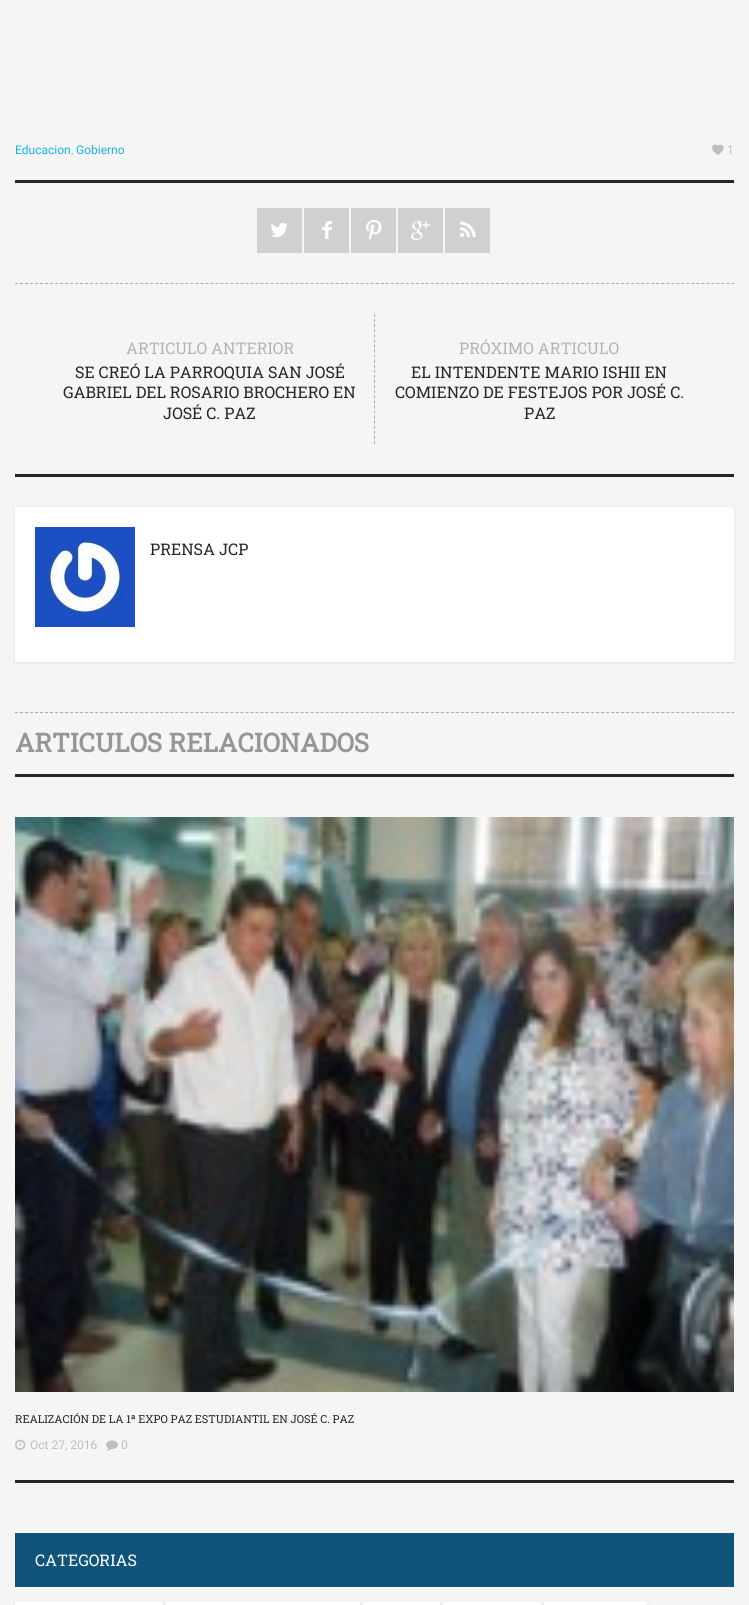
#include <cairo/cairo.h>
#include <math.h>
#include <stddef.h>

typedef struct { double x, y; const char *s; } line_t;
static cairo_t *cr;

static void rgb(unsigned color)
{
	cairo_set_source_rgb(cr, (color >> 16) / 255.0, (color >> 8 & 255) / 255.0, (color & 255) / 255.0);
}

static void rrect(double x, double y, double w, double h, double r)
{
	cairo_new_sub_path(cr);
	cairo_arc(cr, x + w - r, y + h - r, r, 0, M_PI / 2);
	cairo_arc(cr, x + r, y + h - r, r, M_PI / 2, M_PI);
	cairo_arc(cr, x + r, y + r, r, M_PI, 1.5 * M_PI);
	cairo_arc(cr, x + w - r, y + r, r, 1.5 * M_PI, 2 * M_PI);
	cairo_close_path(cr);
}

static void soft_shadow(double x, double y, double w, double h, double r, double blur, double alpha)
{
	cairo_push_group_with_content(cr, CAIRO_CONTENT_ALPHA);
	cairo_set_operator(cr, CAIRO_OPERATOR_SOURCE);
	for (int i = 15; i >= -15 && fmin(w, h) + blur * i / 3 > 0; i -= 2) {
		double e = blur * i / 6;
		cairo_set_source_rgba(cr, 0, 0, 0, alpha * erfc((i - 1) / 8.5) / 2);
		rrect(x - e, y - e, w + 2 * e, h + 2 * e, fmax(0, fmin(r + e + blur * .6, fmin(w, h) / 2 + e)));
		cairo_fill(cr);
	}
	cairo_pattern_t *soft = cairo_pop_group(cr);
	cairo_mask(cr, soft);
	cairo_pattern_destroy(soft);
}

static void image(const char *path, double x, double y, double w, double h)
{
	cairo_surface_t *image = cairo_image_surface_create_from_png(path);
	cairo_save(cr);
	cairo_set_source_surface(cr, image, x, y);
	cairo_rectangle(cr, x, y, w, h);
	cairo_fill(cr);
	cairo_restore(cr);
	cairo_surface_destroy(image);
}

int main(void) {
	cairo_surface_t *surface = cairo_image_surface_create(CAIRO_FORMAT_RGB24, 749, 1605);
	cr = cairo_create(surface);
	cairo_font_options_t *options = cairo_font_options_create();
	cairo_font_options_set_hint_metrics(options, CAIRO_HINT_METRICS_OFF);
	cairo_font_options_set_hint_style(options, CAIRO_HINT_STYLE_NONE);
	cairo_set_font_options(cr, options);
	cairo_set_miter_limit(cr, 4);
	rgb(0xf5f5f5);
	cairo_paint(cr);
	rgb(0x262626);
	cairo_rectangle(cr, 15, 180, 719, 3);
	cairo_fill(cr);
	image("img/1.png", 712, 144, 12, 11);
	cairo_new_path(cr);
	cairo_move_to(cr, 15, 283.5);
	cairo_line_to(cr, 734, 283.5);
	rgb(0xababab);
	cairo_set_line_width(cr, 1);
	cairo_set_dash(cr, (double[]){3, 2.01}, 2, 0);
	cairo_stroke(cr);
	rgb(0xd0d0d0);
	cairo_rectangle(cr, 257, 208, 45, 45);
	cairo_fill(cr);
	image("img/2.png", 271, 222, 17, 16);
	cairo_rectangle(cr, 304, 208, 45, 45);
	cairo_fill(cr);
	image("img/3.png", 322, 221, 10, 18);
	cairo_rectangle(cr, 351, 208, 45, 45);
	cairo_fill(cr);
	image("img/4.png", 366, 220, 16, 20);
	cairo_rectangle(cr, 398, 208, 45, 45);
	cairo_fill(cr);
	image("img/5.png", 411, 221, 19, 19);
	cairo_rectangle(cr, 445, 208, 45, 45);
	cairo_fill(cr);
	image("img/6.png", 460, 221, 16, 17);
	rgb(0x262626);
	cairo_rectangle(cr, 15, 474, 719, 3);
	cairo_fill(cr);
	cairo_new_path(cr);
	cairo_move_to(cr, 374.5, 314);
	cairo_line_to(cr, 374.5, 444);
	rgb(0xababab);
	cairo_set_dash(cr, (double[]){3, 2.08}, 2, 0);
	cairo_stroke(cr);
	rgb(0xdddddd);
	soft_shadow(15, 508, 719, 155, 0, 1.5, 1);
	rgb(0xffffff);
	cairo_rectangle(cr, 15, 507, 719, 155);
	cairo_fill(cr);
	image("img/7.png", 35, 527, 100, 100);
	cairo_new_path(cr);
	cairo_move_to(cr, 15, 712.5);
	cairo_line_to(cr, 734, 712.5);
	rgb(0xababab);
	cairo_set_dash(cr, (double[]){3, 2.01}, 2, 0);
	cairo_stroke(cr);
	rgb(0x262626);
	cairo_rectangle(cr, 15, 774, 719, 3);
	cairo_fill(cr);
	cairo_rectangle(cr, 15, 1480, 719, 3);
	cairo_fill(cr);
	image("img/8.png", 15, 817, 719, 575);
	image("img/9.png", 15, 1439, 11, 11);
	image("img/10.png", 106, 1440, 12, 11);
	rgb(0x11547b);
	cairo_rectangle(cr, 15, 1533, 719, 54);
	cairo_fill(cr);
	rgb(0xdddddd);
	soft_shadow(15, 1603, 148, 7, 0, 1.5, 1);
	rgb(0xffffff);
	cairo_rectangle(cr, 15, 1602, 148, 3);
	cairo_fill(cr);
	rgb(0xdddddd);
	soft_shadow(166, 1603, 194, 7, 0, 1.5, 1);
	rgb(0xffffff);
	cairo_rectangle(cr, 166, 1602, 194, 3);
	cairo_fill(cr);
	rgb(0xdddddd);
	soft_shadow(363, 1603, 77, 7, 0, 1.5, 1);
	rgb(0xffffff);
	cairo_rectangle(cr, 363, 1602, 77, 3);
	cairo_fill(cr);
	rgb(0xdddddd);
	soft_shadow(443, 1603, 98, 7, 0, 1.5, 1);
	rgb(0xffffff);
	cairo_rectangle(cr, 443, 1602, 98, 3);
	cairo_fill(cr);
	rgb(0xdddddd);
	soft_shadow(544, 1603, 103, 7, 0, 1.5, 1);
	rgb(0xffffff);
	cairo_rectangle(cr, 544, 1602, 103, 3);
	cairo_fill(cr);
	cairo_select_font_face(cr, "Roboto", CAIRO_FONT_SLANT_NORMAL, CAIRO_FONT_WEIGHT_NORMAL);
	cairo_set_font_size(cr, 12);
	rgb(0x14b3e4);
	cairo_move_to(cr, 15, 154);
	cairo_show_text(cr, "Educacion");
	rgb(0xbebebe);
	cairo_move_to(cr, 71, 154);
	cairo_show_text(cr, ",");
	rgb(0x14b3e4);
	cairo_move_to(cr, 76, 154);
	cairo_show_text(cr, "Gobierno");
	rgb(0xbebebe);
	cairo_move_to(cr, 727, 154);
	cairo_show_text(cr, "1");
	cairo_select_font_face(cr, "Roboto Slab", CAIRO_FONT_SLANT_NORMAL, CAIRO_FONT_WEIGHT_NORMAL);
	cairo_set_font_size(cr, 16);
	rgb(0xb4b4b4);
	cairo_move_to(cr, 126, 354);
	cairo_show_text(cr, "ARTICULO ANTERIOR");
	rgb(0x262626);
	{
		static const line_t items[] = {
			{75, 378, "SE CREÓ LA PARROQUIA SAN JOSÉ"},
			{63, 398, "GABRIEL DEL ROSARIO BROCHERO EN"},
			{163, 419, "JOSÉ C. PAZ"},
		};
		for (size_t i = 0; i < sizeof items / sizeof *items; i++) {
			cairo_move_to(cr, items[i].x, items[i].y);
			cairo_show_text(cr, items[i].s);
		}
	}
	rgb(0xb4b4b4);
	cairo_move_to(cr, 459, 354);
	cairo_show_text(cr, "PRÓXIMO ARTICULO");
	rgb(0x262626);
	{
		static const line_t items[] = {
			{411, 378, "EL INTENDENTE MARIO ISHII EN"},
			{395, 398, "COMIENZO DE FESTEJOS POR JOSÉ C."},
			{524, 419, "PAZ"},
			{150, 555, "PRENSA JCP"},
		};
		for (size_t i = 0; i < sizeof items / sizeof *items; i++) {
			cairo_move_to(cr, items[i].x, items[i].y);
			cairo_show_text(cr, items[i].s);
		}
	}
	cairo_select_font_face(cr, "Roboto Slab", CAIRO_FONT_SLANT_NORMAL, CAIRO_FONT_WEIGHT_BOLD);
	cairo_set_font_size(cr, 26);
	rgb(0x969696);
	cairo_move_to(cr, 15, 752);
	cairo_show_text(cr, "ARTICULOS RELACIONADOS");
	cairo_select_font_face(cr, "Roboto Slab", CAIRO_FONT_SLANT_NORMAL, CAIRO_FONT_WEIGHT_NORMAL);
	cairo_set_font_size(cr, 11);
	rgb(0x262626);
	cairo_move_to(cr, 15, 1423);
	cairo_show_text(cr, "REALIZACIÓN DE LA 1ª EXPO PAZ ESTUDIANTIL EN JOSÉ C. PAZ");
	cairo_select_font_face(cr, "Roboto", CAIRO_FONT_SLANT_NORMAL, CAIRO_FONT_WEIGHT_NORMAL);
	cairo_set_font_size(cr, 12);
	rgb(0xbebebe);
	cairo_move_to(cr, 30, 1449);
	cairo_show_text(cr, "Oct 27, 2016");
	cairo_move_to(cr, 121, 1449);
	cairo_show_text(cr, "0");
	cairo_select_font_face(cr, "Roboto Slab", CAIRO_FONT_SLANT_NORMAL, CAIRO_FONT_WEIGHT_NORMAL);
	cairo_set_font_size(cr, 16);
	rgb(0xffffff);
	cairo_move_to(cr, 35, 1566);
	cairo_show_text(cr, "CATEGORIAS");
	cairo_surface_write_to_png(surface, "page.png");
	cairo_font_options_destroy(options);
	cairo_destroy(cr);
	cairo_surface_destroy(surface);
	return 0;
}
